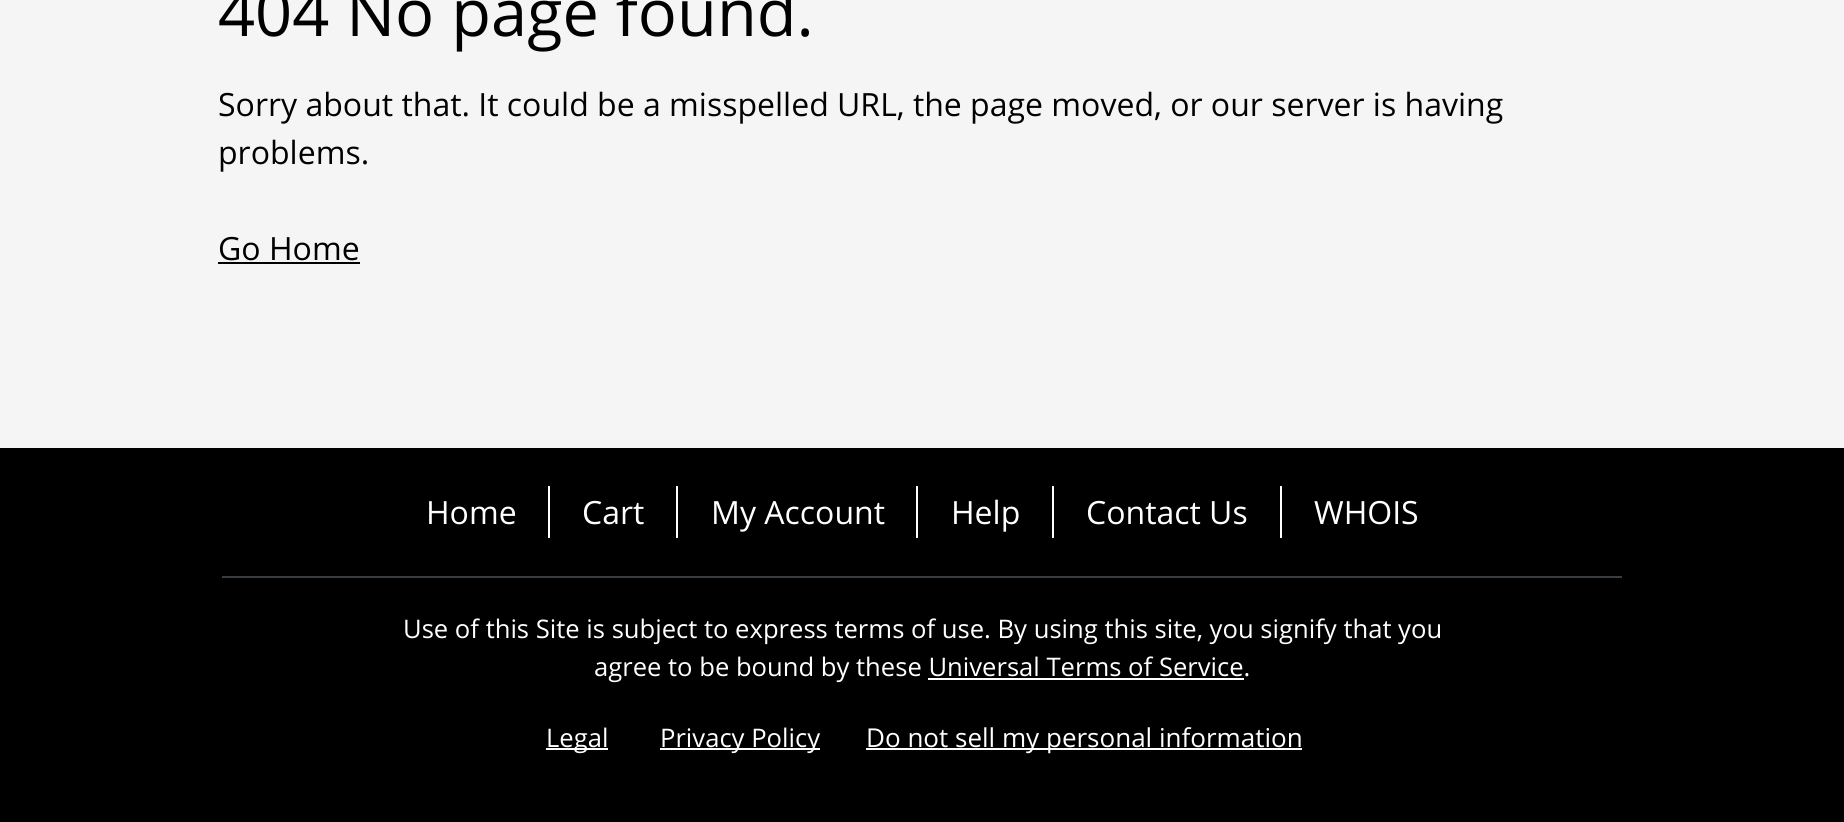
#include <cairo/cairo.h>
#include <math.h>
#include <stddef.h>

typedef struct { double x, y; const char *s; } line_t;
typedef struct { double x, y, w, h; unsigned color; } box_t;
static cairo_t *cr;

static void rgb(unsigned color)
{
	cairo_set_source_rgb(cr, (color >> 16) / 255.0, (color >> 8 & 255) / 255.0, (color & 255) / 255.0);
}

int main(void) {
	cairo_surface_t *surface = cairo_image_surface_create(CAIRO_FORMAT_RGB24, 1844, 822);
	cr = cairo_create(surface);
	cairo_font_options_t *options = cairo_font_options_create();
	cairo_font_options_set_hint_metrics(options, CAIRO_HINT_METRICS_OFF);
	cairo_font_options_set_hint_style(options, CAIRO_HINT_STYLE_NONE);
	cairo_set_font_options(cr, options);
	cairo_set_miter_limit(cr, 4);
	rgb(0xf5f5f5);
	cairo_paint(cr);
	{
		static const box_t items[] = {
			{218, 262, 142, 2, 0x000000},
			{0, 448, 1844, 374, 0x000000},
			{222, 576, 1400, 2, 0x373d41},
			{548, 486, 2, 52, 0xffffff},
			{676, 486, 2, 52, 0xffffff},
			{916, 486, 2, 52, 0xffffff},
			{1052, 486, 2, 52, 0xffffff},
			{1280, 486, 2, 52, 0xffffff},
			{928, 678, 316, 2, 0xffffff},
			{546, 748, 62, 2, 0xffffff},
			{660, 748, 160, 2, 0xffffff},
			{866, 748, 436, 2, 0xffffff},
		};
		for (size_t i = 0; i < sizeof items / sizeof *items; i++) {
			rgb(items[i].color);
			cairo_rectangle(cr, items[i].x, items[i].y, items[i].w, items[i].h);
			cairo_fill(cr);
		}
	}
	cairo_select_font_face(cr, "Open Sans", CAIRO_FONT_SLANT_NORMAL, CAIRO_FONT_WEIGHT_NORMAL);
	cairo_set_font_size(cr, 64.9);
	rgb(0x000000);
	cairo_move_to(cr, 218, 36);
	cairo_show_text(cr, "404 No page found.");
	cairo_set_font_size(cr, 32);
	{
		static const line_t items[] = {
			{218, 116, "Sorry about that. It could be a misspelled URL, the page moved, or our server is having"},
			{218, 164, "problems."},
			{218, 260, "Go Home"},
		};
		for (size_t i = 0; i < sizeof items / sizeof *items; i++) {
			cairo_move_to(cr, items[i].x, items[i].y);
			cairo_show_text(cr, items[i].s);
		}
	}
	rgb(0xffffff);
	{
		static const line_t items[] = {
			{426, 524, "Home"},
			{582, 524, "Cart"},
			{711, 524, "My Account"},
			{951, 524, "Help"},
			{1086, 524, "Contact Us"},
			{1314, 524, "WHOIS"},
		};
		for (size_t i = 0; i < sizeof items / sizeof *items; i++) {
			cairo_move_to(cr, items[i].x, items[i].y);
			cairo_show_text(cr, items[i].s);
		}
	}
	cairo_set_font_size(cr, 25.6);
	{
		static const line_t items[] = {
			{403, 638, "Use of this Site is subject to express terms of use. By using this site, you signify that you"},
			{594, 676, "agree to be bound by these Universal Terms of Service."},
			{546, 747, "Legal"},
			{660, 747, "Privacy Policy"},
		};
		for (size_t i = 0; i < sizeof items / sizeof *items; i++) {
			cairo_move_to(cr, items[i].x, items[i].y);
			cairo_show_text(cr, items[i].s);
		}
	}
	cairo_set_font_size(cr, 26);
	cairo_move_to(cr, 866, 747);
	cairo_show_text(cr, "Do not sell my personal information");
	cairo_surface_write_to_png(surface, "page.png");
	cairo_font_options_destroy(options);
	cairo_destroy(cr);
	cairo_surface_destroy(surface);
	return 0;
}
